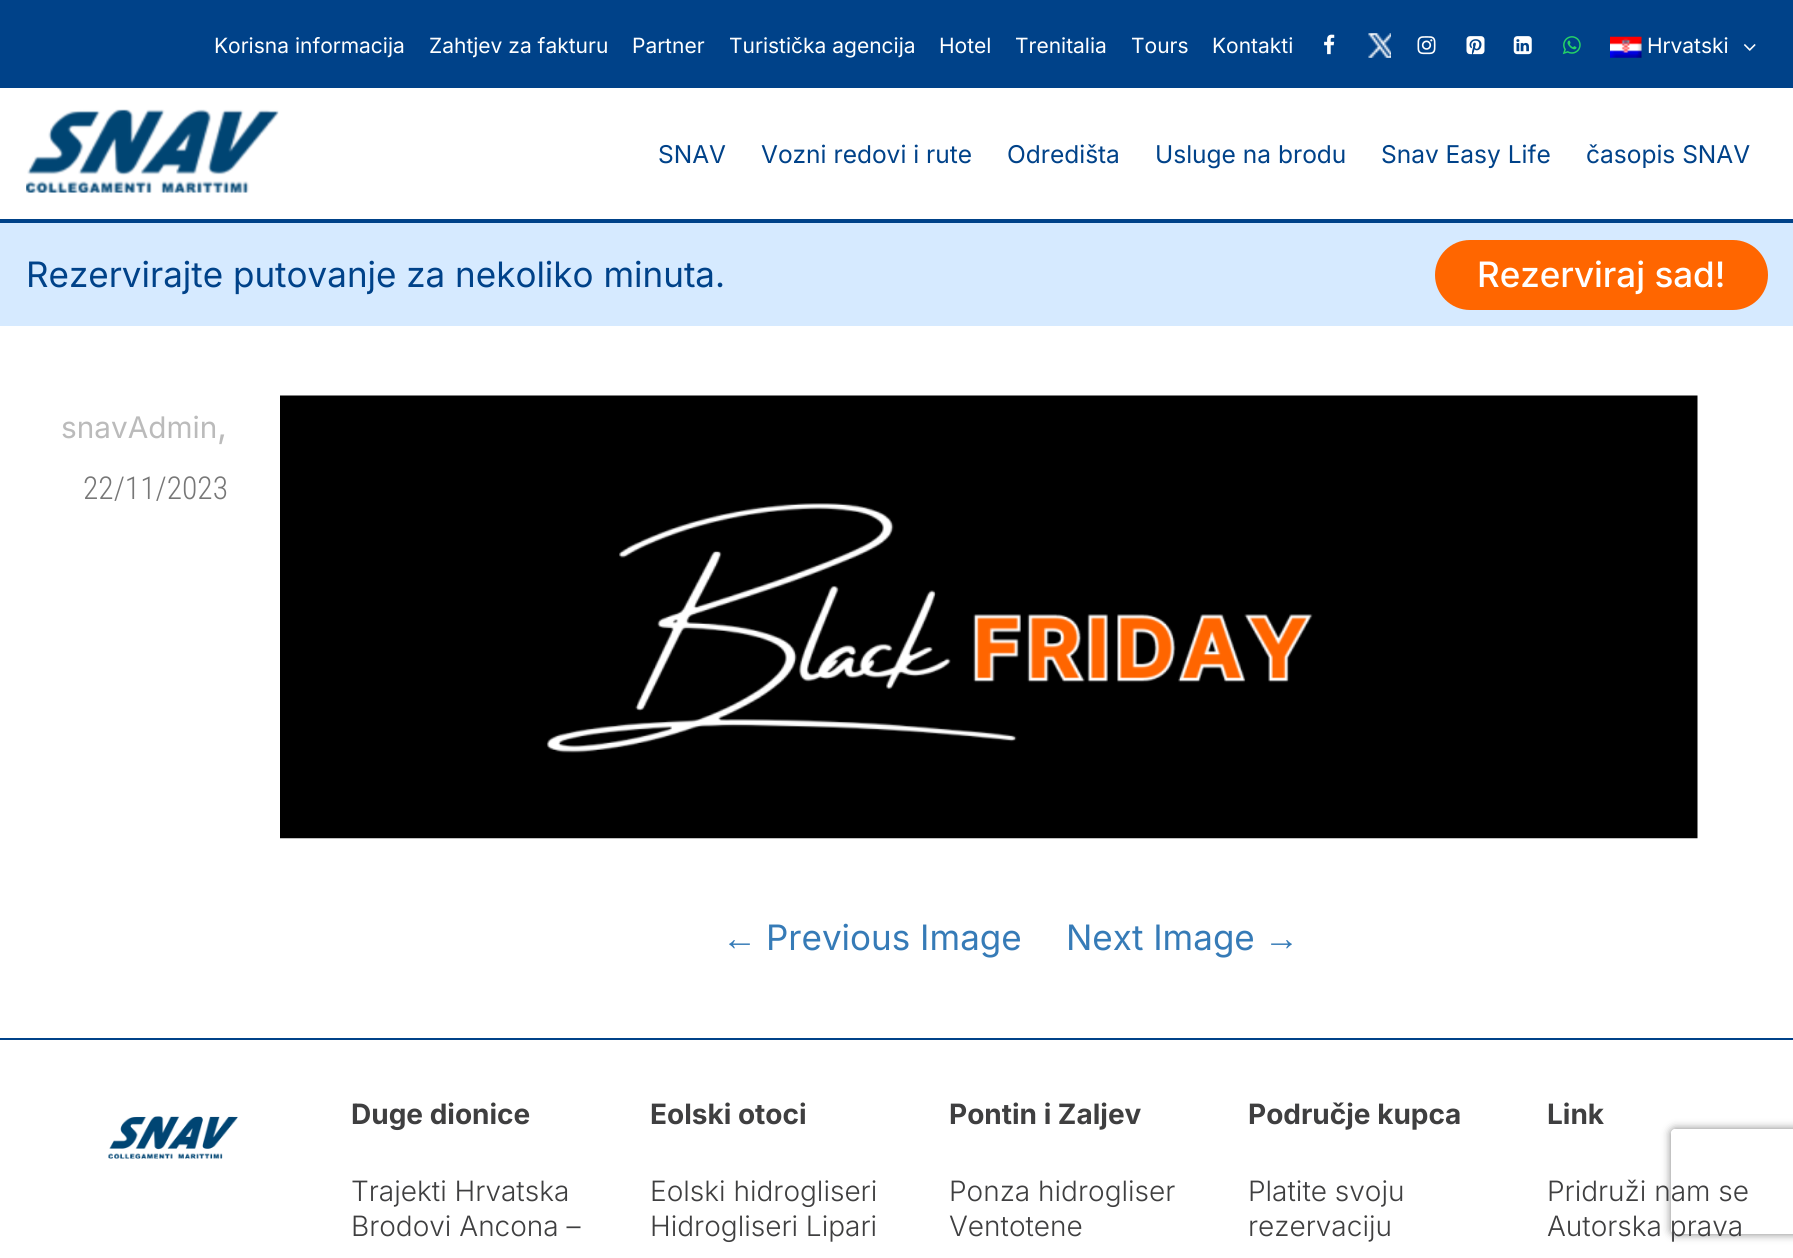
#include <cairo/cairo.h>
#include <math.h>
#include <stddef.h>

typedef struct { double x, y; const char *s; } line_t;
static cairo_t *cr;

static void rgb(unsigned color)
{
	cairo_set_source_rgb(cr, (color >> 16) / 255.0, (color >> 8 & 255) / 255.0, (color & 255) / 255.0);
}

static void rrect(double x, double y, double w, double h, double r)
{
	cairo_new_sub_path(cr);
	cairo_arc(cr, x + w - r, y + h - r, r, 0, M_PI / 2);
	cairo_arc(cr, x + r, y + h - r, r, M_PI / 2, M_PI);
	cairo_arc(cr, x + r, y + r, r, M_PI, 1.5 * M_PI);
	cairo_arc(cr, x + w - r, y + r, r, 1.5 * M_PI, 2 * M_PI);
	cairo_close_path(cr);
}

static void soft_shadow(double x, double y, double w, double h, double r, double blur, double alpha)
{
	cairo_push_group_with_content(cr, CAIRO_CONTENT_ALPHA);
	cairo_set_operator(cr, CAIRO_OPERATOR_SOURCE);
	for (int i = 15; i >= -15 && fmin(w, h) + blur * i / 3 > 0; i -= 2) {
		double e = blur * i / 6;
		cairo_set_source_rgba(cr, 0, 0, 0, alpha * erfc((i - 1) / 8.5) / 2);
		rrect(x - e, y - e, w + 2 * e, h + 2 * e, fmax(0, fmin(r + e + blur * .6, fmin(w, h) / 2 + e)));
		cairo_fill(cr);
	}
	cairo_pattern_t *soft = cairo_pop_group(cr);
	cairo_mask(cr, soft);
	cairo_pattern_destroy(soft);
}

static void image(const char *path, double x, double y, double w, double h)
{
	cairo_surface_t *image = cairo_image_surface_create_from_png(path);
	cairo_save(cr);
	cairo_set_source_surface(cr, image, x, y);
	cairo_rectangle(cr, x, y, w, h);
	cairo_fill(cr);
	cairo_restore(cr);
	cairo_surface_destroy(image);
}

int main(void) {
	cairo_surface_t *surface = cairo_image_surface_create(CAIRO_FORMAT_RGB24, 1793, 1258);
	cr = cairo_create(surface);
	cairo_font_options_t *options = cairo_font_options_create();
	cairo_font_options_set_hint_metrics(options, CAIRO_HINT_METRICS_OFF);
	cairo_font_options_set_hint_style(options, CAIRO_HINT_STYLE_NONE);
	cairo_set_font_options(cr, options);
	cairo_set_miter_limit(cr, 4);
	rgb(0xffffff);
	cairo_paint(cr);
	rgb(0x004289);
	cairo_rectangle(cr, 0, 0, 1793, 88);
	cairo_fill(cr);
	image("img/1.png", 1324, 34, 11, 21);
	image("img/2.png", 1368, 33, 23, 25);
	image("img/3.png", 1417, 36, 19, 19);
	image("img/4.png", 1466, 36, 19, 19);
	image("img/5.png", 1513, 36, 19, 19);
	image("img/6.png", 1562, 36, 19, 19);
	image("img/7.png", 1610, 36, 32, 22);
	image("img/8.png", 1744, 44, 12, 7);
	cairo_rectangle(cr, 0, 219, 1793, 4);
	cairo_fill(cr);
	image("img/9.png", 26, 109, 253, 84);
	rgb(0xd6eaff);
	cairo_rectangle(cr, 0, 223, 1793, 103);
	cairo_fill(cr);
	rgb(0xff6600);
	rrect(1435, 240, 333, 70, 35);
	cairo_fill(cr);
	image("img/10.png", 280, 395, 1418, 444);
	rgb(0x004289);
	cairo_rectangle(cr, 0, 1038, 1793, 2);
	cairo_fill(cr);
	image("img/11.png", 108, 1116, 130, 43);
	cairo_save(cr);
	cairo_set_fill_rule(cr, CAIRO_FILL_RULE_EVEN_ODD);
	cairo_new_path(cr);
	cairo_move_to(cr, 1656, 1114);
	cairo_line_to(cr, 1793, 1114);
	cairo_line_to(cr, 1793, 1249);
	cairo_line_to(cr, 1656, 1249);
	cairo_close_path(cr);
	cairo_move_to(cr, 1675, 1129);
	cairo_line_to(cr, 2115, 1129);
	cairo_curve_to(cr, 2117, 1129, 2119, 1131, 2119, 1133);
	cairo_line_to(cr, 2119, 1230);
	cairo_curve_to(cr, 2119, 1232, 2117, 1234, 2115, 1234);
	cairo_line_to(cr, 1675, 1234);
	cairo_curve_to(cr, 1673, 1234, 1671, 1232, 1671, 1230);
	cairo_line_to(cr, 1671, 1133);
	cairo_curve_to(cr, 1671, 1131, 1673, 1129, 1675, 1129);
	cairo_close_path(cr);
	cairo_clip(cr);
	rgb(0x808080);
	soft_shadow(1671, 1129, 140, 105, 4, 4.5, 1);
	cairo_restore(cr);
	cairo_select_font_face(cr, "Inter", CAIRO_FONT_SLANT_NORMAL, CAIRO_FONT_WEIGHT_NORMAL);
	cairo_set_font_size(cr, 21);
	rgb(0xffffff);
	{
		static const line_t items[] = {
			{214, 53, "Korisna informacija"},
			{429, 53, "Zahtjev za fakturu"},
			{632, 53, "Partner"},
			{729, 53, "Turistička agencija"},
			{939, 53, "Hotel"},
			{1015, 53, "Trenitalia"},
			{1131, 53, "Tours"},
			{1212, 53, "Kontakti"},
			{1647, 53, "Hrvatski"},
		};
		for (size_t i = 0; i < sizeof items / sizeof *items; i++) {
			cairo_move_to(cr, items[i].x, items[i].y);
			cairo_show_text(cr, items[i].s);
		}
	}
	cairo_set_font_size(cr, 24.5);
	rgb(0x004289);
	{
		static const line_t items[] = {
			{658, 163, "SNAV"},
			{761, 163, "Vozni redovi i rute"},
			{1007, 163, "Odredišta"},
			{1155, 163, "Usluge na brodu"},
			{1381, 163, "Snav Easy Life"},
			{1586, 163, "časopis SNAV"},
		};
		for (size_t i = 0; i < sizeof items / sizeof *items; i++) {
			cairo_move_to(cr, items[i].x, items[i].y);
			cairo_show_text(cr, items[i].s);
		}
	}
	cairo_set_font_size(cr, 35);
	cairo_move_to(cr, 26, 287);
	cairo_show_text(cr, "Rezervirajte putovanje za nekoliko minuta.");
	cairo_select_font_face(cr, "Inter Medium", CAIRO_FONT_SLANT_NORMAL, CAIRO_FONT_WEIGHT_NORMAL);
	rgb(0xffffff);
	cairo_move_to(cr, 1477, 287);
	cairo_show_text(cr, "Rezerviraj sad!");
	cairo_select_font_face(cr, "Inter", CAIRO_FONT_SLANT_NORMAL, CAIRO_FONT_WEIGHT_NORMAL);
	cairo_set_font_size(cr, 29.75);
	rgb(0xbbbbbb);
	cairo_move_to(cr, 61, 438);
	cairo_show_text(cr, "snavAdmin");
	cairo_set_font_size(cr, 35);
	cairo_move_to(cr, 217, 438);
	cairo_show_text(cr, ",");
	cairo_select_font_face(cr, "Roboto Condensed Light", CAIRO_FONT_SLANT_NORMAL, CAIRO_FONT_WEIGHT_NORMAL);
	cairo_set_font_size(cr, 31.5);
	rgb(0x777777);
	cairo_move_to(cr, 83, 499);
	cairo_show_text(cr, "22/11/2023");
	cairo_select_font_face(cr, "Liberation Sans", CAIRO_FONT_SLANT_NORMAL, CAIRO_FONT_WEIGHT_NORMAL);
	cairo_set_font_size(cr, 35);
	rgb(0x367bb7);
	cairo_move_to(cr, 722, 950);
	cairo_show_text(cr, "←");
	cairo_select_font_face(cr, "Inter", CAIRO_FONT_SLANT_NORMAL, CAIRO_FONT_WEIGHT_NORMAL);
	cairo_move_to(cr, 766, 950);
	cairo_show_text(cr, "Previous Image");
	cairo_move_to(cr, 1066, 950);
	cairo_show_text(cr, "Next Image");
	cairo_select_font_face(cr, "Liberation Sans", CAIRO_FONT_SLANT_NORMAL, CAIRO_FONT_WEIGHT_NORMAL);
	cairo_move_to(cr, 1264, 950);
	cairo_show_text(cr, "→");
	cairo_select_font_face(cr, "Inter", CAIRO_FONT_SLANT_NORMAL, CAIRO_FONT_WEIGHT_BOLD);
	cairo_set_font_size(cr, 28);
	rgb(0x3f3f40);
	cairo_move_to(cr, 351, 1124);
	cairo_show_text(cr, "Duge dionice");
	cairo_select_font_face(cr, "Inter Light", CAIRO_FONT_SLANT_NORMAL, CAIRO_FONT_WEIGHT_NORMAL);
	cairo_move_to(cr, 351, 1201);
	cairo_show_text(cr, "Trajekti Hrvatska");
	cairo_move_to(cr, 351, 1236);
	cairo_show_text(cr, "Brodovi Ancona –");
	cairo_select_font_face(cr, "Inter", CAIRO_FONT_SLANT_NORMAL, CAIRO_FONT_WEIGHT_BOLD);
	cairo_move_to(cr, 650, 1124);
	cairo_show_text(cr, "Eolski otoci");
	cairo_select_font_face(cr, "Inter Light", CAIRO_FONT_SLANT_NORMAL, CAIRO_FONT_WEIGHT_NORMAL);
	cairo_move_to(cr, 650, 1201);
	cairo_show_text(cr, "Eolski hidrogliseri");
	cairo_move_to(cr, 650, 1236);
	cairo_show_text(cr, "Hidrogliseri Lipari");
	cairo_select_font_face(cr, "Inter", CAIRO_FONT_SLANT_NORMAL, CAIRO_FONT_WEIGHT_BOLD);
	cairo_move_to(cr, 949, 1124);
	cairo_show_text(cr, "Pontin i Zaljev");
	cairo_select_font_face(cr, "Inter Light", CAIRO_FONT_SLANT_NORMAL, CAIRO_FONT_WEIGHT_NORMAL);
	cairo_move_to(cr, 949, 1201);
	cairo_show_text(cr, "Ponza hidrogliser");
	cairo_move_to(cr, 949, 1236);
	cairo_show_text(cr, "Ventotene");
	cairo_select_font_face(cr, "Inter", CAIRO_FONT_SLANT_NORMAL, CAIRO_FONT_WEIGHT_BOLD);
	cairo_move_to(cr, 1248, 1124);
	cairo_show_text(cr, "Područje kupca");
	cairo_select_font_face(cr, "Inter Light", CAIRO_FONT_SLANT_NORMAL, CAIRO_FONT_WEIGHT_NORMAL);
	cairo_move_to(cr, 1248, 1201);
	cairo_show_text(cr, "Platite svoju");
	cairo_move_to(cr, 1248, 1236);
	cairo_show_text(cr, "rezervaciju");
	cairo_select_font_face(cr, "Inter", CAIRO_FONT_SLANT_NORMAL, CAIRO_FONT_WEIGHT_BOLD);
	cairo_move_to(cr, 1547, 1124);
	cairo_show_text(cr, "Link");
	cairo_select_font_face(cr, "Inter Light", CAIRO_FONT_SLANT_NORMAL, CAIRO_FONT_WEIGHT_NORMAL);
	cairo_move_to(cr, 1547, 1201);
	cairo_show_text(cr, "Pridruži nam se");
	cairo_move_to(cr, 1547, 1236);
	cairo_show_text(cr, "Autorska prava");
	cairo_surface_write_to_png(surface, "page.png");
	cairo_font_options_destroy(options);
	cairo_destroy(cr);
	cairo_surface_destroy(surface);
	return 0;
}
